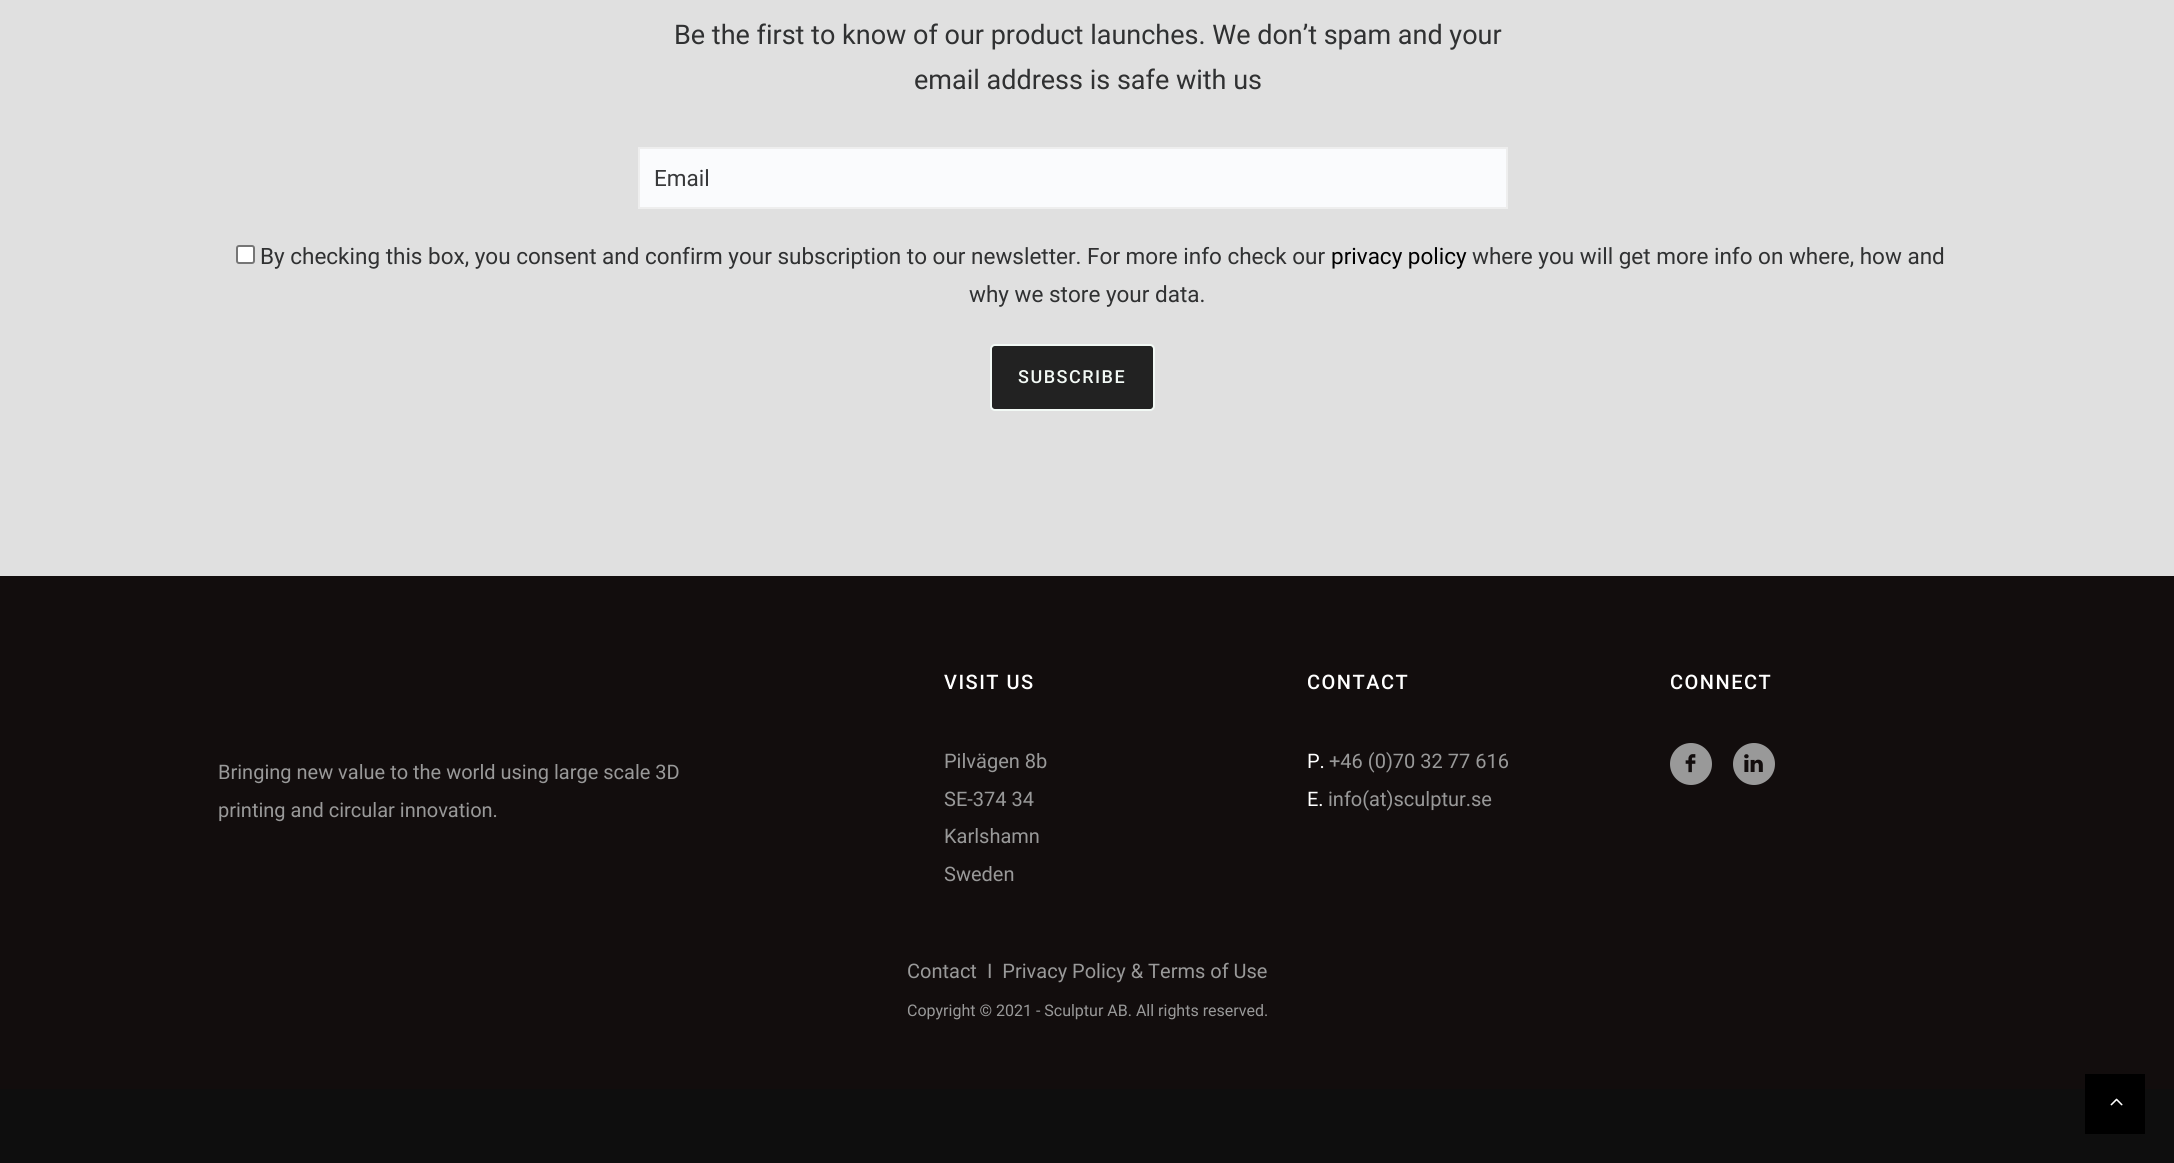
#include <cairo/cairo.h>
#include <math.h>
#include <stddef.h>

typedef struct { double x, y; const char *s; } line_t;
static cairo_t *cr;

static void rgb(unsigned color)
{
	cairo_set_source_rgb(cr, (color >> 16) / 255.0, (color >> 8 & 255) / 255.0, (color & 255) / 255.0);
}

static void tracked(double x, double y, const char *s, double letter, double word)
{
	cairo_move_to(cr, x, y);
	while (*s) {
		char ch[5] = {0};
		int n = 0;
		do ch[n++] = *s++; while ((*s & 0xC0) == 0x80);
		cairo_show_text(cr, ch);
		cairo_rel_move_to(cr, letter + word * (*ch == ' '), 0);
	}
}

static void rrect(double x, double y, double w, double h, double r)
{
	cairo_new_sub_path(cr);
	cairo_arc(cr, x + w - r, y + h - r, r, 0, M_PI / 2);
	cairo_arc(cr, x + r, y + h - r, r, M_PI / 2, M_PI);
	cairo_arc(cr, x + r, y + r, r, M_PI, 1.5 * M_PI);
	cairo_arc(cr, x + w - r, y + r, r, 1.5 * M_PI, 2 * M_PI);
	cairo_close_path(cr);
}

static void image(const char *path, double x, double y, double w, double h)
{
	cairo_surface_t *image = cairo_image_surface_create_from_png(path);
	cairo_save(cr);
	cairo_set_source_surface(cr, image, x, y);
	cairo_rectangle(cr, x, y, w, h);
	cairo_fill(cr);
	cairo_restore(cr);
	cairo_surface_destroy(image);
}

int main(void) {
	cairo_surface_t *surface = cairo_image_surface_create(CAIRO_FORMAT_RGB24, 2174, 1163);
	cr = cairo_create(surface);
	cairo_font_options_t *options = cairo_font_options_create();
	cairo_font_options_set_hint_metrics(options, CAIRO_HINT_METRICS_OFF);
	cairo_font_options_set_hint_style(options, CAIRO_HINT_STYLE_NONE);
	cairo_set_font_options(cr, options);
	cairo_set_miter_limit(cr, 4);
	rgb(0xe0e0e0);
	cairo_paint(cr);
	rgb(0xfafbfd);
	cairo_rectangle(cr, 639, 148, 868, 60);
	cairo_fill_preserve(cr);
	rgb(0xeeeeee);
	cairo_stroke(cr);
	rgb(0xffffff);
	rrect(237, 246, 17, 17, 2);
	cairo_fill_preserve(cr);
	rgb(0x767676);
	cairo_stroke(cr);
	rgb(0x222222);
	rrect(991, 345, 163, 65, 4);
	cairo_fill_preserve(cr);
	rgb(0xf2f9f5);
	cairo_stroke(cr);
	rgb(0x120d0d);
	cairo_rectangle(cr, 0, 576, 2174, 513);
	cairo_fill(cr);
	rgb(0x999999);
	cairo_arc(cr, 1691, 764, 21, 0, 2 * M_PI);
	cairo_fill(cr);
	image("img/1.png", 1685, 754, 11, 19);
	cairo_arc(cr, 1754, 764, 21, 0, 2 * M_PI);
	cairo_fill(cr);
	image("img/2.png", 1744, 754, 19, 18);
	rgb(0x0e0e0e);
	cairo_rectangle(cr, 0, 1089, 2174, 74);
	cairo_fill(cr);
	rgb(0x000000);
	cairo_rectangle(cr, 2085, 1074, 60, 60);
	cairo_fill(cr);
	image("img/3.png", 2110, 1098, 13, 8);
	cairo_select_font_face(cr, "Roboto", CAIRO_FONT_SLANT_NORMAL, CAIRO_FONT_WEIGHT_NORMAL);
	cairo_set_font_size(cr, 27);
	rgb(0x303132);
	cairo_move_to(cr, 674, 44);
	cairo_show_text(cr, "Be the first to know of our product launches. We don’t spam and your");
	cairo_move_to(cr, 914, 89);
	cairo_show_text(cr, "email address is safe with us");
	cairo_set_font_size(cr, 22.5);
	rgb(0x37383a);
	cairo_move_to(cr, 654, 186);
	cairo_show_text(cr, "Email");
	rgb(0x303132);
	cairo_move_to(cr, 260, 264);
	cairo_show_text(cr, "By checking this box, you consent and confirm your subscription to our newsletter. For more info check our");
	rgb(0x000000);
	cairo_move_to(cr, 1331, 264);
	cairo_show_text(cr, "privacy policy");
	rgb(0x303132);
	cairo_move_to(cr, 1472, 264);
	cairo_show_text(cr, "where you will get more info on where, how and");
	cairo_move_to(cr, 969, 302);
	cairo_show_text(cr, "why we store your data.");
	cairo_select_font_face(cr, "Roboto Medium", CAIRO_FONT_SLANT_NORMAL, CAIRO_FONT_WEIGHT_NORMAL);
	cairo_set_font_size(cr, 18);
	rgb(0xf2f9f5);
	tracked(1018, 383, "SUBSCRIBE", 1.5, 0);
	cairo_set_font_size(cr, 20);
	rgb(0xffffff);
	tracked(944, 689, "VISIT US", 1.5, 0);
	cairo_select_font_face(cr, "Roboto", CAIRO_FONT_SLANT_NORMAL, CAIRO_FONT_WEIGHT_NORMAL);
	rgb(0x999999);
	{
		static const line_t items[] = {
			{944, 768, "Pilvägen 8b"},
			{944, 806, "SE-374 34"},
			{944, 843, "Karlshamn"},
			{944, 881, "Sweden"},
		};
		for (size_t i = 0; i < sizeof items / sizeof *items; i++) {
			cairo_move_to(cr, items[i].x, items[i].y);
			cairo_show_text(cr, items[i].s);
		}
	}
	cairo_select_font_face(cr, "Roboto Medium", CAIRO_FONT_SLANT_NORMAL, CAIRO_FONT_WEIGHT_NORMAL);
	rgb(0xffffff);
	tracked(1307, 689, "CONTACT", 1.5, 0);
	cairo_select_font_face(cr, "Roboto", CAIRO_FONT_SLANT_NORMAL, CAIRO_FONT_WEIGHT_NORMAL);
	cairo_move_to(cr, 1307, 768);
	cairo_show_text(cr, "P.");
	rgb(0x999999);
	cairo_move_to(cr, 1329, 768);
	cairo_show_text(cr, "+46 (0)70 32 77 616");
	rgb(0xffffff);
	cairo_move_to(cr, 1307, 806);
	cairo_show_text(cr, "E.");
	rgb(0x999999);
	cairo_move_to(cr, 1328, 806);
	cairo_show_text(cr, "info(at)sculptur.se");
	cairo_select_font_face(cr, "Roboto Medium", CAIRO_FONT_SLANT_NORMAL, CAIRO_FONT_WEIGHT_NORMAL);
	rgb(0xffffff);
	tracked(1670, 689, "CONNECT", 1.5, 0);
	cairo_select_font_face(cr, "Roboto", CAIRO_FONT_SLANT_NORMAL, CAIRO_FONT_WEIGHT_NORMAL);
	rgb(0x999999);
	{
		static const line_t items[] = {
			{218, 779, "Bringing new value to the world using large scale 3D"},
			{218, 817, "printing and circular innovation."},
			{907, 978, "Contact"},
			{987, 978, "I  Privacy Policy & Terms of Use"},
		};
		for (size_t i = 0; i < sizeof items / sizeof *items; i++) {
			cairo_move_to(cr, items[i].x, items[i].y);
			cairo_show_text(cr, items[i].s);
		}
	}
	cairo_set_font_size(cr, 16);
	cairo_move_to(cr, 907, 1016);
	cairo_show_text(cr, "Copyright © 2021 - Sculptur AB. All rights reserved.");
	cairo_surface_write_to_png(surface, "page.png");
	cairo_font_options_destroy(options);
	cairo_destroy(cr);
	cairo_surface_destroy(surface);
	return 0;
}
